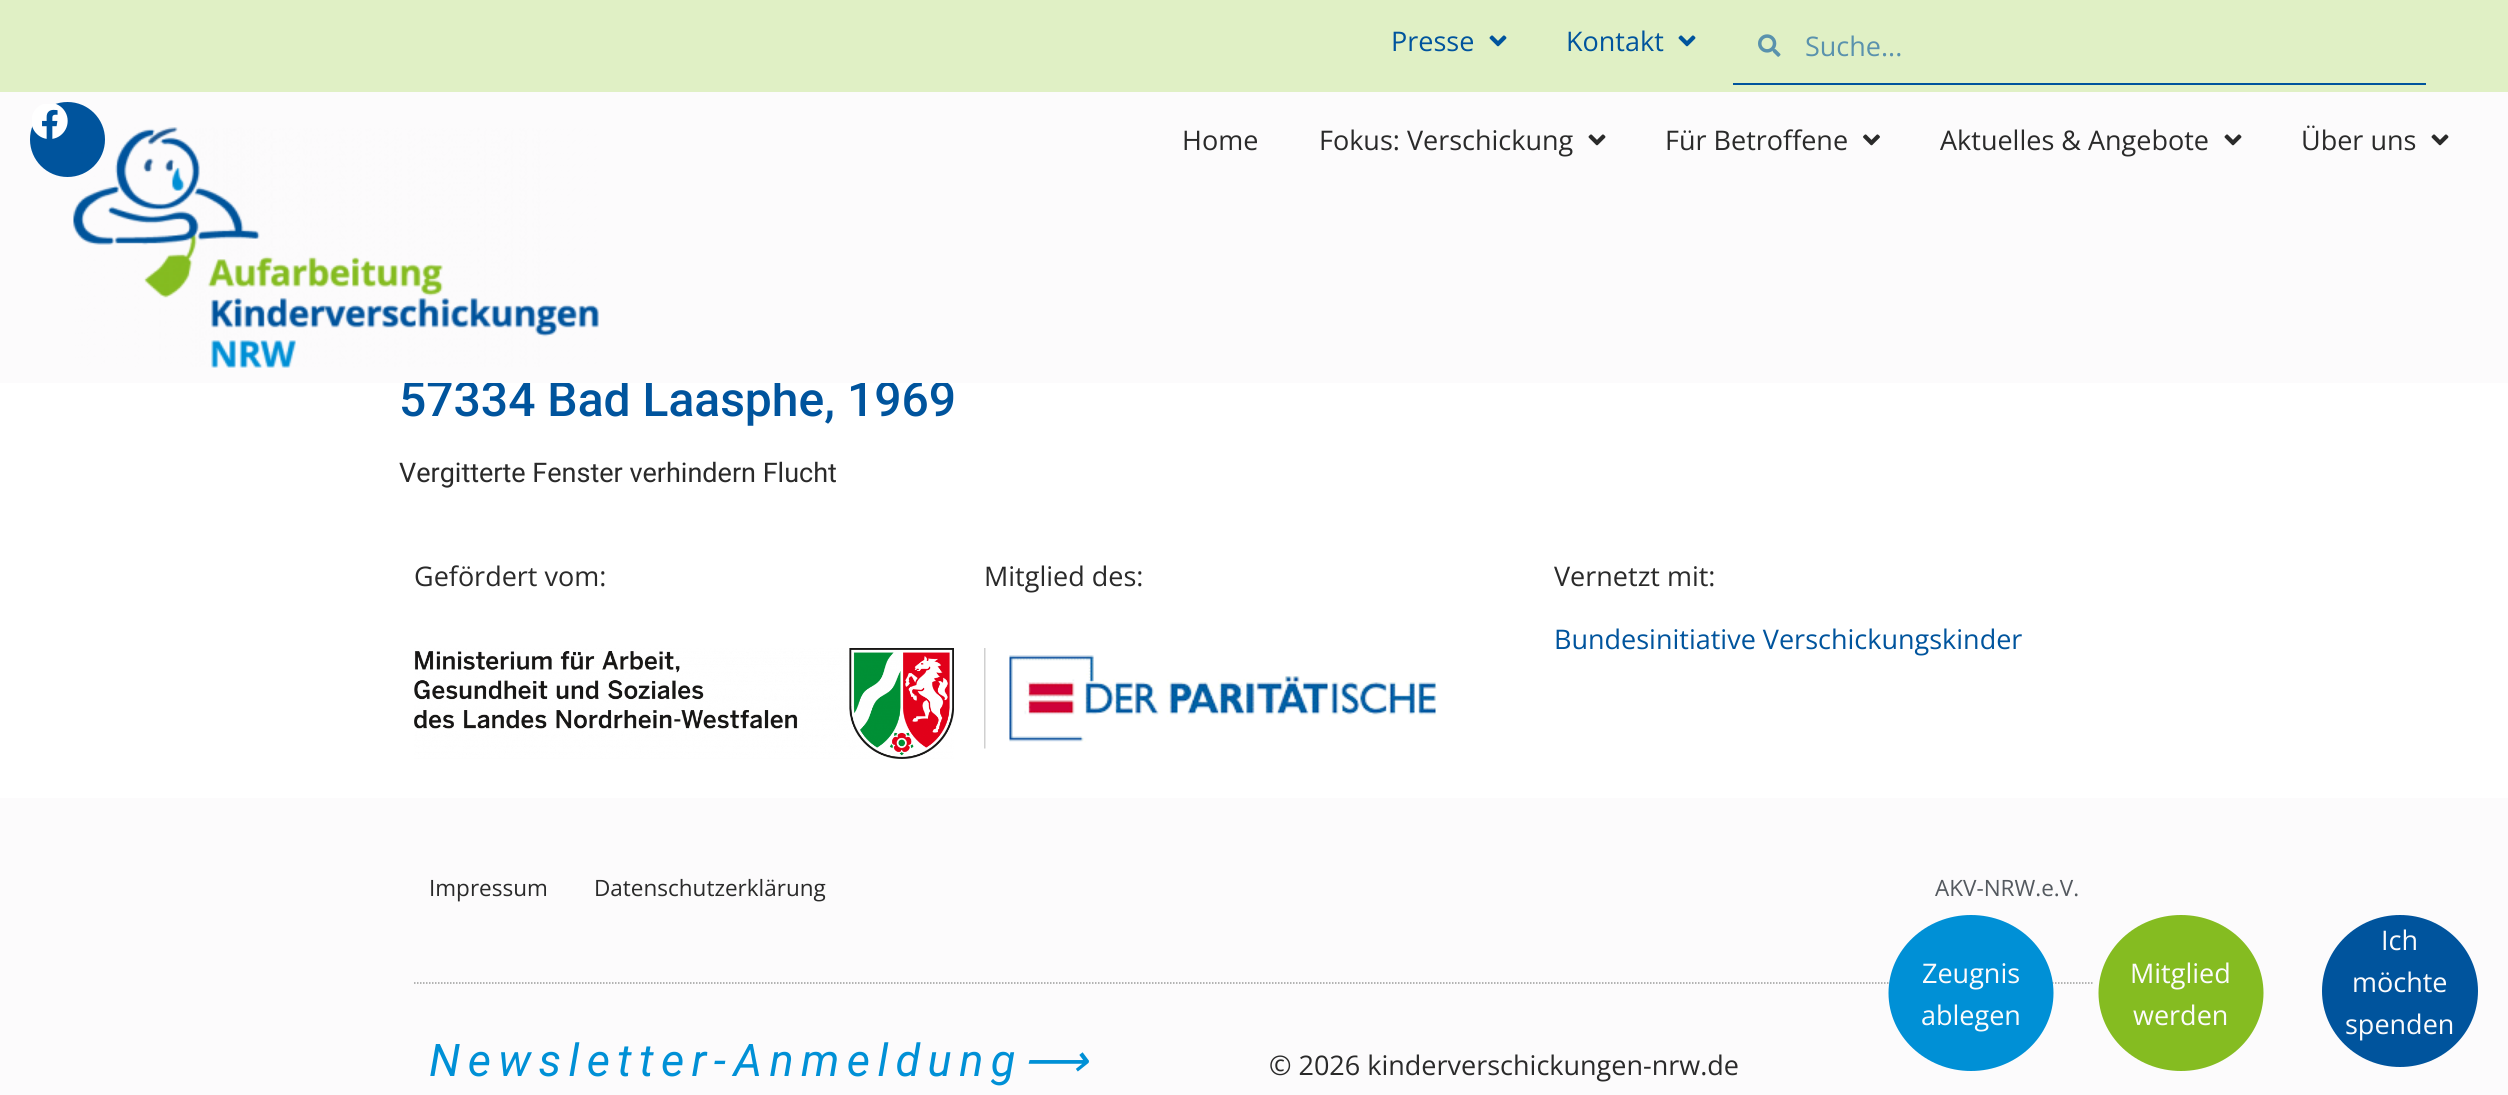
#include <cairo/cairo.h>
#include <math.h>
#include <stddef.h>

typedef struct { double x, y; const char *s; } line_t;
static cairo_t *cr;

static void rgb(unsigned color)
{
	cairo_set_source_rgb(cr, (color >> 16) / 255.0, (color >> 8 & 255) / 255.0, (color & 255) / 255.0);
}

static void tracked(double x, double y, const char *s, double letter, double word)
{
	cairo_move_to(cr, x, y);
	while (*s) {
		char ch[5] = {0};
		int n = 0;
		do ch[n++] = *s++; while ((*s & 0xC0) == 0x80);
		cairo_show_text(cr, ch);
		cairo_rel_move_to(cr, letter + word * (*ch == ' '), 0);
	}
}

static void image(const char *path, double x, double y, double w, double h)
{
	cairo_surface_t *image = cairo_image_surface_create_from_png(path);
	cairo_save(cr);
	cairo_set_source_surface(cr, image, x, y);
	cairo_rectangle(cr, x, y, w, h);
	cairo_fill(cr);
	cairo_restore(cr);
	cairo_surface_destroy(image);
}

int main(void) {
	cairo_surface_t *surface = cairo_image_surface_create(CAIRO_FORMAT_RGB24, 2508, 1095);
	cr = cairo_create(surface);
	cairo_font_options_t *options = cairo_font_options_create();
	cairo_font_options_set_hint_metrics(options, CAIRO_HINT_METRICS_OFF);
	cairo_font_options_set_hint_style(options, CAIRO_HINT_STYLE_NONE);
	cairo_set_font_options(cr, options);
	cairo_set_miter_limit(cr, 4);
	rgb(0xffffff);
	cairo_paint(cr);
	rgb(0xe0f0c5);
	cairo_rectangle(cr, 0, 0, 2508, 92);
	cairo_fill(cr);
	image("img/1.png", 1489, 35, 18, 12);
	image("img/1.png", 1678, 35, 18, 12);
	rgb(0x00549d);
	cairo_rectangle(cr, 1733, 83, 693, 2);
	cairo_fill(cr);
	image("img/2.png", 1758, 34, 23, 23);
	image("img/7.png", 414, 648, 540, 111);
	image("img/8.png", 984, 648, 453, 101);
	rgb(0xfcfbfc);
	cairo_rectangle(cr, 0, 798, 2508, 297);
	cairo_fill(cr);
	cairo_new_path(cr);
	cairo_move_to(cr, 414, 983);
	cairo_line_to(cr, 2094, 983);
	rgb(0x9b9b9b);
	cairo_set_line_width(cr, 1.5);
	cairo_set_dash(cr, (double[]){1.5, 1.5}, 2, 0);
	cairo_stroke(cr);
	rgb(0x0090d6);
	cairo_new_path(cr);
	cairo_move_to(cr, 1971, 915);
	cairo_curve_to(cr, 2016.5, 915, 2053.5, 950, 2053.5, 993);
	cairo_curve_to(cr, 2053.5, 1036, 2016.5, 1071, 1971, 1071);
	cairo_curve_to(cr, 1925.5, 1071, 1888.5, 1036, 1888.5, 993);
	cairo_curve_to(cr, 1888.5, 950, 1925.5, 915, 1971, 915);
	cairo_close_path(cr);
	cairo_fill(cr);
	rgb(0x85bc21);
	cairo_new_path(cr);
	cairo_move_to(cr, 2181, 915);
	cairo_curve_to(cr, 2226.5, 915, 2263.5, 950, 2263.5, 993);
	cairo_curve_to(cr, 2263.5, 1036, 2226.5, 1071, 2181, 1071);
	cairo_curve_to(cr, 2135.5, 1071, 2098.5, 1036, 2098.5, 993);
	cairo_curve_to(cr, 2098.5, 950, 2135.5, 915, 2181, 915);
	cairo_close_path(cr);
	cairo_fill(cr);
	rgb(0x00549d);
	cairo_new_path(cr);
	cairo_move_to(cr, 2400, 915);
	cairo_curve_to(cr, 2443, 915, 2478, 949, 2478, 991);
	cairo_curve_to(cr, 2478, 1033, 2443, 1067, 2400, 1067);
	cairo_curve_to(cr, 2357, 1067, 2322, 1033, 2322, 991);
	cairo_curve_to(cr, 2322, 949, 2357, 915, 2400, 915);
	cairo_close_path(cr);
	cairo_fill(cr);
	cairo_select_font_face(cr, "Open Sans", CAIRO_FONT_SLANT_NORMAL, CAIRO_FONT_WEIGHT_NORMAL);
	cairo_set_font_size(cr, 27);
	cairo_move_to(cr, 1391, 51);
	cairo_show_text(cr, "Presse");
	cairo_move_to(cr, 1566, 51);
	cairo_show_text(cr, "Kontakt");
	rgb(0x5a92ad);
	cairo_move_to(cr, 1805, 56);
	cairo_show_text(cr, "Suche...");
	cairo_select_font_face(cr, "Roboto Medium", CAIRO_FONT_SLANT_NORMAL, CAIRO_FONT_WEIGHT_NORMAL);
	cairo_set_font_size(cr, 48);
	rgb(0x00549d);
	cairo_move_to(cr, 399, 416);
	cairo_show_text(cr, "57334 Bad Laasphe, 1969");
	rgb(0xfcfbfc);
	cairo_rectangle(cr, 0, 92, 2508, 291);
	cairo_fill(cr);
	rgb(0x00549d);
	cairo_arc(cr, 67.5, 139.5, 37.5, 0, 2 * M_PI);
	cairo_fill(cr);
	image("img/3.png", 73, 127, 526, 241);
	image("img/5.png", 2431, 134, 18, 12);
	cairo_select_font_face(cr, "Open Sans", CAIRO_FONT_SLANT_NORMAL, CAIRO_FONT_WEIGHT_NORMAL);
	cairo_set_font_size(cr, 27);
	rgb(0x2a2a2a);
	cairo_move_to(cr, 2301, 150);
	cairo_show_text(cr, "Über uns");
	image("img/5.png", 2224, 134, 18, 12);
	cairo_move_to(cr, 1940, 150);
	cairo_show_text(cr, "Aktuelles & Angebote");
	image("img/6.png", 1863, 134, 17, 12);
	cairo_move_to(cr, 1665, 150);
	cairo_show_text(cr, "Für Betroffene");
	image("img/5.png", 1588, 134, 18, 12);
	cairo_move_to(cr, 1319, 150);
	cairo_show_text(cr, "Fokus: Verschickung");
	cairo_move_to(cr, 1182, 150);
	cairo_show_text(cr, "Home");
	image("img/4.png", 32, 104, 36, 35);
	cairo_select_font_face(cr, "Roboto", CAIRO_FONT_SLANT_NORMAL, CAIRO_FONT_WEIGHT_NORMAL);
	cairo_move_to(cr, 399, 482);
	cairo_show_text(cr, "Vergitterte Fenster verhindern Flucht");
	cairo_select_font_face(cr, "Open Sans", CAIRO_FONT_SLANT_NORMAL, CAIRO_FONT_WEIGHT_NORMAL);
	{
		static const line_t items[] = {
			{414, 586, "Gefördert vom:"},
			{984, 586, "Mitglied des:"},
			{1554, 586, "Vernetzt mit:"},
		};
		for (size_t i = 0; i < sizeof items / sizeof *items; i++) {
			cairo_move_to(cr, items[i].x, items[i].y);
			cairo_show_text(cr, items[i].s);
		}
	}
	rgb(0x00549d);
	cairo_move_to(cr, 1554, 649);
	cairo_show_text(cr, "Bundesinitiative Verschickungskinder");
	cairo_set_font_size(cr, 22.5);
	rgb(0x2a2a2a);
	cairo_move_to(cr, 429, 896);
	cairo_show_text(cr, "Impressum");
	cairo_move_to(cr, 594, 896);
	cairo_show_text(cr, "Datenschutzerklärung");
	rgb(0x54595f);
	cairo_move_to(cr, 1935, 896);
	cairo_show_text(cr, "AKV-NRW.e.V.");
	cairo_select_font_face(cr, "Roboto", CAIRO_FONT_SLANT_ITALIC, CAIRO_FONT_WEIGHT_NORMAL);
	cairo_set_font_size(cr, 45);
	rgb(0x0090d6);
	tracked(429, 1076, "Newsletter-Anmeldung", 7.5, 0);
	cairo_select_font_face(cr, "DejaVu Sans", CAIRO_FONT_SLANT_ITALIC, CAIRO_FONT_WEIGHT_NORMAL);
	tracked(1023, 1076, "⟶", 7.5, 0);
	cairo_select_font_face(cr, "Open Sans", CAIRO_FONT_SLANT_NORMAL, CAIRO_FONT_WEIGHT_NORMAL);
	cairo_set_font_size(cr, 27);
	rgb(0x2a2a2a);
	cairo_move_to(cr, 1269, 1075);
	cairo_show_text(cr, "© 2026 kinderverschickungen-nrw.de");
	rgb(0xfcfbfc);
	{
		static const line_t items[] = {
			{1922, 983, "Zeugnis"},
			{1921, 1025, "ablegen"},
			{2130, 983, "Mitglied"},
			{2133, 1025, "werden"},
			{2381, 950, "Ich"},
			{2352, 992, "möchte"},
			{2345, 1034, "spenden"},
		};
		for (size_t i = 0; i < sizeof items / sizeof *items; i++) {
			cairo_move_to(cr, items[i].x, items[i].y);
			cairo_show_text(cr, items[i].s);
		}
	}
	cairo_surface_write_to_png(surface, "page.png");
	cairo_font_options_destroy(options);
	cairo_destroy(cr);
	cairo_surface_destroy(surface);
	return 0;
}
